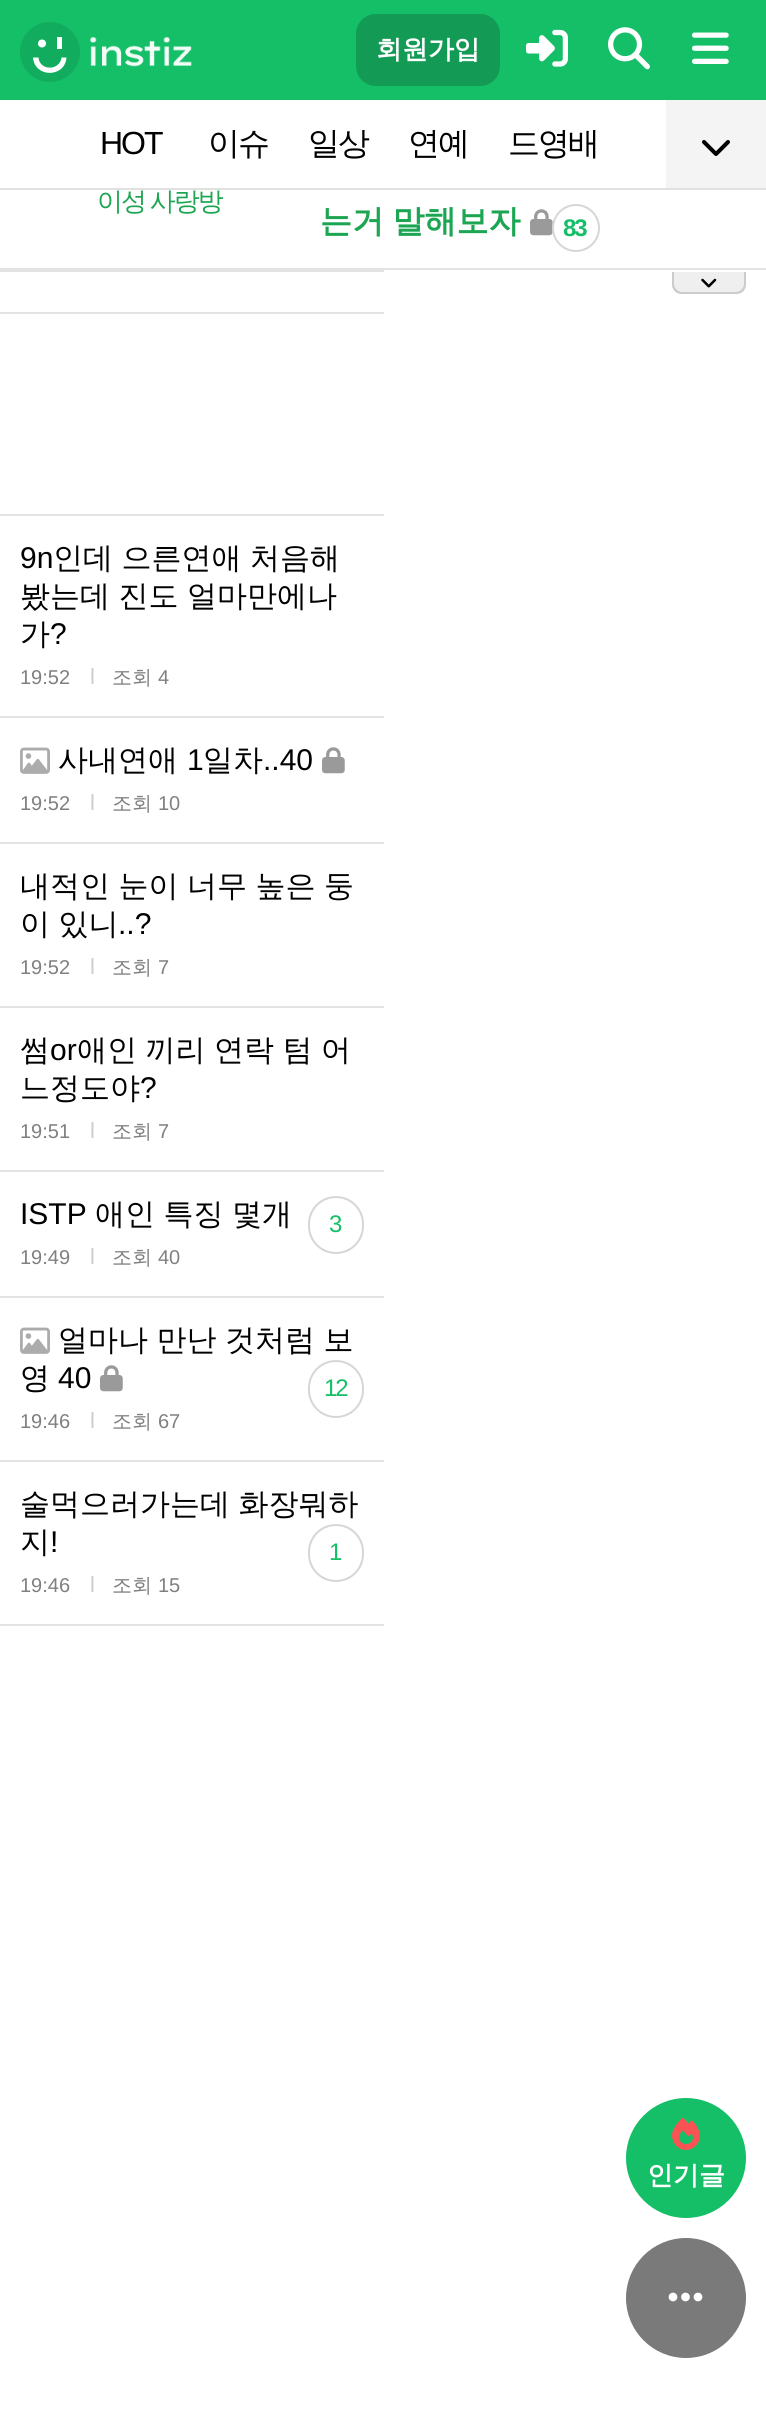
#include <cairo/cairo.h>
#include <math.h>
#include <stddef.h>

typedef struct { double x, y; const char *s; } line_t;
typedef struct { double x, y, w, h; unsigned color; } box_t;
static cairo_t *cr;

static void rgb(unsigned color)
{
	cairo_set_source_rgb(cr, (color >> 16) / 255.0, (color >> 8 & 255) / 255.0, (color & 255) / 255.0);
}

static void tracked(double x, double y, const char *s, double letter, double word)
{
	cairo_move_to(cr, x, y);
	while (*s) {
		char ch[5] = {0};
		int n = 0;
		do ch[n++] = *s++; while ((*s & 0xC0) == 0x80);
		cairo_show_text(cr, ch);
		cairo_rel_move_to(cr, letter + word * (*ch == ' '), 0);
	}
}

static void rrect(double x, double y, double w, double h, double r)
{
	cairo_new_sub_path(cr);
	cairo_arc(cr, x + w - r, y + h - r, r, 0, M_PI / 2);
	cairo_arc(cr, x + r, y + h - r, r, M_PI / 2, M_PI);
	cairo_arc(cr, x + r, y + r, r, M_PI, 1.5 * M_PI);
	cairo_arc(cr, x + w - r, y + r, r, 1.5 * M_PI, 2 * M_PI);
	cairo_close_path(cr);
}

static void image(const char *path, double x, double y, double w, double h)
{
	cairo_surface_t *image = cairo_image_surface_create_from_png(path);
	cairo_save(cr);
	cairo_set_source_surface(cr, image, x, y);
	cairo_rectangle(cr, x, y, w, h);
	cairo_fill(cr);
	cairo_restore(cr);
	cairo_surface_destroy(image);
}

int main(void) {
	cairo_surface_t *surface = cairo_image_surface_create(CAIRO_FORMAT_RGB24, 766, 2418);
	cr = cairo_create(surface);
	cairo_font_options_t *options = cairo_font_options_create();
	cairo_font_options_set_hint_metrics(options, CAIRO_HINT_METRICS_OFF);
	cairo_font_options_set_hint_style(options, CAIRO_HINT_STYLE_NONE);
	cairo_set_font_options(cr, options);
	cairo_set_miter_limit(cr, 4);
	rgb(0xffffff);
	cairo_paint(cr);
	rgb(0x14bf68);
	cairo_rectangle(cr, 0, 0, 766, 100);
	cairo_fill(cr);
	rgb(0x12ac5e);
	cairo_arc(cr, 50, 52, 30, 0, 2 * M_PI);
	cairo_fill(cr);
	image("img/1.png", 90, 36, 102, 31);
	rgb(0xffffff);
	cairo_arc(cr, 42, 43.5, 4, 0, 2 * M_PI);
	cairo_fill(cr);
	cairo_rectangle(cr, 57, 37, 5, 12);
	cairo_fill(cr);
	cairo_new_path(cr);
	cairo_move_to(cr, 61.5, 57.5);
	cairo_curve_to(cr, 60, 71, 39.5, 71, 38.5, 57.5);
	cairo_line_to(cr, 33, 57.5);
	cairo_curve_to(cr, 34.5, 78, 65, 78, 66.5, 57.5);
	cairo_close_path(cr);
	cairo_fill(cr);
	rgb(0x139b55);
	rrect(356, 14, 144, 72, 20);
	cairo_fill(cr);
	image("img/2.png", 526, 29, 42, 38);
	image("img/3.png", 608, 27, 42, 43);
	image("img/4.png", 692, 32, 37, 32);
	rgb(0xe1e1e1);
	cairo_rectangle(cr, 0, 188, 766, 2);
	cairo_fill(cr);
	rgb(0xf4f4f4);
	cairo_rectangle(cr, 666, 100, 100, 88);
	cairo_fill(cr);
	image("img/5.png", 702, 140, 28, 16);
	rgb(0xe3e3e3);
	cairo_rectangle(cr, 0, 268, 766, 2);
	cairo_fill(cr);
	image("img/6.png", 530, 209, 23, 27);
	rgb(0xffffff);
	cairo_arc(cr, 576, 228, 23, 0, 2 * M_PI);
	cairo_fill_preserve(cr);
	rgb(0xd6d6d6);
	cairo_stroke(cr);
	rgb(0xe3e3e3);
	cairo_rectangle(cr, 0, 270, 384, 2);
	cairo_fill(cr);
	cairo_rectangle(cr, 0, 312, 384, 2);
	cairo_fill(cr);
	rgb(0xefefef);
	cairo_new_path(cr);
	cairo_move_to(cr, 672, 272);
	cairo_line_to(cr, 746, 272);
	cairo_line_to(cr, 746, 284);
	cairo_curve_to(cr, 746, 289.5, 741.5, 294, 736, 294);
	cairo_line_to(cr, 682, 294);
	cairo_curve_to(cr, 676.5, 294, 672, 289.5, 672, 284);
	cairo_close_path(cr);
	cairo_fill(cr);
	rgb(0xcccccc);
	cairo_set_fill_rule(cr, CAIRO_FILL_RULE_EVEN_ODD);
	cairo_new_path(cr);
	cairo_move_to(cr, 672, 272);
	cairo_line_to(cr, 746, 272);
	cairo_line_to(cr, 746, 284);
	cairo_curve_to(cr, 746, 290, 742, 294, 736, 294);
	cairo_line_to(cr, 682, 294);
	cairo_curve_to(cr, 676, 294, 672, 290, 672, 284);
	cairo_close_path(cr);
	cairo_move_to(cr, 674, 272);
	cairo_line_to(cr, 744, 272);
	cairo_line_to(cr, 744, 284);
	cairo_curve_to(cr, 744, 288, 740, 292, 736, 292);
	cairo_line_to(cr, 682, 292);
	cairo_curve_to(cr, 678, 292, 674, 288, 674, 284);
	cairo_close_path(cr);
	cairo_fill(cr);
	image("img/7.png", 701, 278, 16, 10);
	{
		static const box_t items[] = {
			{0, 514, 384, 2, 0xe3e3e3},
			{0, 716, 384, 2, 0xe3e3e3},
			{0, 842, 384, 2, 0xe3e3e3},
		};
		for (size_t i = 0; i < sizeof items / sizeof *items; i++) {
			rgb(items[i].color);
			cairo_rectangle(cr, items[i].x, items[i].y, items[i].w, items[i].h);
			cairo_fill(cr);
		}
	}
	image("img/8.png", 20, 747, 30, 27);
	image("img/6.png", 322, 747, 23, 27);
	{
		static const box_t items[] = {
			{0, 1006, 384, 2, 0xe3e3e3},
			{0, 1170, 384, 2, 0xe3e3e3},
			{0, 1296, 384, 2, 0xe3e3e3},
		};
		for (size_t i = 0; i < sizeof items / sizeof *items; i++) {
			rgb(items[i].color);
			cairo_rectangle(cr, items[i].x, items[i].y, items[i].w, items[i].h);
			cairo_fill(cr);
		}
	}
	rrect(309, 1197, 54, 56, 27);
	rgb(0xd6d6d6);
	cairo_stroke(cr);
	rgb(0xe3e3e3);
	cairo_rectangle(cr, 0, 1460, 384, 2);
	cairo_fill(cr);
	image("img/8.png", 20, 1327, 30, 27);
	image("img/6.png", 100, 1365, 23, 27);
	rrect(309, 1361, 54, 56, 27);
	rgb(0xd6d6d6);
	cairo_stroke(cr);
	rgb(0xe3e3e3);
	cairo_rectangle(cr, 0, 1624, 384, 2);
	cairo_fill(cr);
	rrect(309, 1525, 54, 56, 27);
	rgb(0xd6d6d6);
	cairo_stroke(cr);
	rgb(0x14bf68);
	cairo_arc(cr, 686, 2158, 60, 0, 2 * M_PI);
	cairo_fill(cr);
	image("img/9.png", 672, 2118, 28, 32);
	rgb(0x7a7a7a);
	cairo_arc(cr, 686, 2298, 60, 0, 2 * M_PI);
	cairo_fill(cr);
	image("img/10.png", 668, 2292, 35, 10);
	cairo_select_font_face(cr, "WenQuanYi Zen Hei", CAIRO_FONT_SLANT_NORMAL, CAIRO_FONT_WEIGHT_BOLD);
	cairo_set_font_size(cr, 26);
	rgb(0xffffff);
	cairo_move_to(cr, 376, 58);
	cairo_show_text(cr, "회원가입");
	cairo_select_font_face(cr, "Liberation Sans", CAIRO_FONT_SLANT_NORMAL, CAIRO_FONT_WEIGHT_NORMAL);
	cairo_set_font_size(cr, 32);
	rgb(0x000000);
	tracked(100, 154, "HOT", -2, 0);
	cairo_select_font_face(cr, "WenQuanYi Zen Hei Medium", CAIRO_FONT_SLANT_NORMAL, CAIRO_FONT_WEIGHT_NORMAL);
	{
		static const line_t items[] = {
			{208, 154, "이슈"},
			{308, 154, "일상"},
			{408, 154, "연예"},
			{508, 154, "드영배"},
		};
		for (size_t i = 0; i < sizeof items / sizeof *items; i++) {
			tracked(items[i].x, items[i].y, items[i].s, -2, 0);
		}
	}
	cairo_set_font_size(cr, 26);
	rgb(0x1ca552);
	tracked(97, 210, "이성 사랑방", -2, -1);
	cairo_select_font_face(cr, "WenQuanYi Zen Hei", CAIRO_FONT_SLANT_NORMAL, CAIRO_FONT_WEIGHT_BOLD);
	cairo_set_font_size(cr, 32);
	tracked(320, 232, "는거 말해보자", 0, -1);
	cairo_select_font_face(cr, "Liberation Sans", CAIRO_FONT_SLANT_NORMAL, CAIRO_FONT_WEIGHT_BOLD);
	cairo_set_font_size(cr, 24);
	rgb(0x14bf68);
	tracked(563, 236, "83", -2, 0);
	cairo_select_font_face(cr, "Liberation Sans", CAIRO_FONT_SLANT_NORMAL, CAIRO_FONT_WEIGHT_NORMAL);
	cairo_set_font_size(cr, 30);
	rgb(0x000000);
	cairo_move_to(cr, 20, 568);
	cairo_show_text(cr, "9n");
	cairo_select_font_face(cr, "WenQuanYi Zen Hei Medium", CAIRO_FONT_SLANT_NORMAL, CAIRO_FONT_WEIGHT_NORMAL);
	tracked(53, 568, "인데 으른연애 처음해", 0, -0.5);
	tracked(20, 606, "봤는데 진도 얼마만에나", 0, -0.5);
	cairo_move_to(cr, 20, 644);
	cairo_show_text(cr, "가");
	cairo_select_font_face(cr, "Liberation Sans", CAIRO_FONT_SLANT_NORMAL, CAIRO_FONT_WEIGHT_NORMAL);
	cairo_move_to(cr, 50, 644);
	cairo_show_text(cr, "?");
	cairo_set_font_size(cr, 20);
	rgb(0x808080);
	cairo_move_to(cr, 20, 684);
	cairo_show_text(cr, "19:52");
	cairo_set_font_size(cr, 22);
	rgb(0xcccccc);
	tracked(90, 684, "l", -2, 0);
	cairo_select_font_face(cr, "WenQuanYi Zen Hei Medium", CAIRO_FONT_SLANT_NORMAL, CAIRO_FONT_WEIGHT_NORMAL);
	cairo_set_font_size(cr, 20);
	rgb(0x808080);
	cairo_move_to(cr, 112, 684);
	cairo_show_text(cr, "조회");
	cairo_select_font_face(cr, "Liberation Sans", CAIRO_FONT_SLANT_NORMAL, CAIRO_FONT_WEIGHT_NORMAL);
	cairo_move_to(cr, 158, 684);
	cairo_show_text(cr, "4");
	cairo_select_font_face(cr, "WenQuanYi Zen Hei Medium", CAIRO_FONT_SLANT_NORMAL, CAIRO_FONT_WEIGHT_NORMAL);
	cairo_set_font_size(cr, 30);
	rgb(0x000000);
	cairo_move_to(cr, 58, 770);
	cairo_show_text(cr, "사내연애");
	cairo_select_font_face(cr, "Liberation Sans", CAIRO_FONT_SLANT_NORMAL, CAIRO_FONT_WEIGHT_NORMAL);
	cairo_move_to(cr, 187, 770);
	cairo_show_text(cr, "1");
	cairo_select_font_face(cr, "WenQuanYi Zen Hei Medium", CAIRO_FONT_SLANT_NORMAL, CAIRO_FONT_WEIGHT_NORMAL);
	cairo_move_to(cr, 203, 770);
	cairo_show_text(cr, "일차");
	cairo_select_font_face(cr, "Liberation Sans", CAIRO_FONT_SLANT_NORMAL, CAIRO_FONT_WEIGHT_NORMAL);
	cairo_move_to(cr, 263, 770);
	cairo_show_text(cr, "..40");
	cairo_set_font_size(cr, 20);
	rgb(0x808080);
	cairo_move_to(cr, 20, 810);
	cairo_show_text(cr, "19:52");
	cairo_set_font_size(cr, 22);
	rgb(0xcccccc);
	tracked(90, 810, "l", -2, 0);
	cairo_select_font_face(cr, "WenQuanYi Zen Hei Medium", CAIRO_FONT_SLANT_NORMAL, CAIRO_FONT_WEIGHT_NORMAL);
	cairo_set_font_size(cr, 20);
	rgb(0x808080);
	cairo_move_to(cr, 112, 810);
	cairo_show_text(cr, "조회");
	cairo_select_font_face(cr, "Liberation Sans", CAIRO_FONT_SLANT_NORMAL, CAIRO_FONT_WEIGHT_NORMAL);
	cairo_move_to(cr, 158, 810);
	cairo_show_text(cr, "10");
	cairo_select_font_face(cr, "WenQuanYi Zen Hei Medium", CAIRO_FONT_SLANT_NORMAL, CAIRO_FONT_WEIGHT_NORMAL);
	cairo_set_font_size(cr, 30);
	rgb(0x000000);
	tracked(20, 896, "내적인 눈이 너무 높은 둥", 0, -0.5);
	tracked(20, 934, "이 있니", 0, -0.5);
	cairo_select_font_face(cr, "Liberation Sans", CAIRO_FONT_SLANT_NORMAL, CAIRO_FONT_WEIGHT_NORMAL);
	cairo_move_to(cr, 118, 934);
	cairo_show_text(cr, "..?");
	cairo_set_font_size(cr, 20);
	rgb(0x808080);
	cairo_move_to(cr, 20, 974);
	cairo_show_text(cr, "19:52");
	cairo_set_font_size(cr, 22);
	rgb(0xcccccc);
	tracked(90, 974, "l", -2, 0);
	cairo_select_font_face(cr, "WenQuanYi Zen Hei Medium", CAIRO_FONT_SLANT_NORMAL, CAIRO_FONT_WEIGHT_NORMAL);
	cairo_set_font_size(cr, 20);
	rgb(0x808080);
	cairo_move_to(cr, 112, 974);
	cairo_show_text(cr, "조회");
	cairo_select_font_face(cr, "Liberation Sans", CAIRO_FONT_SLANT_NORMAL, CAIRO_FONT_WEIGHT_NORMAL);
	cairo_move_to(cr, 158, 974);
	cairo_show_text(cr, "7");
	cairo_select_font_face(cr, "WenQuanYi Zen Hei Medium", CAIRO_FONT_SLANT_NORMAL, CAIRO_FONT_WEIGHT_NORMAL);
	cairo_set_font_size(cr, 30);
	rgb(0x000000);
	cairo_move_to(cr, 20, 1060);
	cairo_show_text(cr, "썸");
	cairo_select_font_face(cr, "Liberation Sans", CAIRO_FONT_SLANT_NORMAL, CAIRO_FONT_WEIGHT_NORMAL);
	cairo_move_to(cr, 50, 1060);
	cairo_show_text(cr, "or");
	cairo_select_font_face(cr, "WenQuanYi Zen Hei Medium", CAIRO_FONT_SLANT_NORMAL, CAIRO_FONT_WEIGHT_NORMAL);
	tracked(77, 1060, "애인 끼리 연락 텀 어", 0, -0.5);
	cairo_move_to(cr, 20, 1098);
	cairo_show_text(cr, "느정도야");
	cairo_select_font_face(cr, "Liberation Sans", CAIRO_FONT_SLANT_NORMAL, CAIRO_FONT_WEIGHT_NORMAL);
	cairo_move_to(cr, 140, 1098);
	cairo_show_text(cr, "?");
	cairo_set_font_size(cr, 20);
	rgb(0x808080);
	cairo_move_to(cr, 20, 1138);
	cairo_show_text(cr, "19:51");
	cairo_set_font_size(cr, 22);
	rgb(0xcccccc);
	tracked(90, 1138, "l", -2, 0);
	cairo_select_font_face(cr, "WenQuanYi Zen Hei Medium", CAIRO_FONT_SLANT_NORMAL, CAIRO_FONT_WEIGHT_NORMAL);
	cairo_set_font_size(cr, 20);
	rgb(0x808080);
	cairo_move_to(cr, 112, 1138);
	cairo_show_text(cr, "조회");
	cairo_select_font_face(cr, "Liberation Sans", CAIRO_FONT_SLANT_NORMAL, CAIRO_FONT_WEIGHT_NORMAL);
	cairo_move_to(cr, 158, 1138);
	cairo_show_text(cr, "7");
	cairo_set_font_size(cr, 30);
	rgb(0x000000);
	cairo_move_to(cr, 20, 1224);
	cairo_show_text(cr, "ISTP");
	cairo_select_font_face(cr, "WenQuanYi Zen Hei Medium", CAIRO_FONT_SLANT_NORMAL, CAIRO_FONT_WEIGHT_NORMAL);
	tracked(95, 1224, "애인 특징 몇개", 0, -0.5);
	cairo_select_font_face(cr, "Liberation Sans", CAIRO_FONT_SLANT_NORMAL, CAIRO_FONT_WEIGHT_NORMAL);
	cairo_set_font_size(cr, 24);
	rgb(0x14bf68);
	tracked(329, 1232, "3", -2, 0);
	cairo_set_font_size(cr, 20);
	rgb(0x808080);
	cairo_move_to(cr, 20, 1264);
	cairo_show_text(cr, "19:49");
	cairo_set_font_size(cr, 22);
	rgb(0xcccccc);
	tracked(90, 1264, "l", -2, 0);
	cairo_select_font_face(cr, "WenQuanYi Zen Hei Medium", CAIRO_FONT_SLANT_NORMAL, CAIRO_FONT_WEIGHT_NORMAL);
	cairo_set_font_size(cr, 20);
	rgb(0x808080);
	cairo_move_to(cr, 112, 1264);
	cairo_show_text(cr, "조회");
	cairo_select_font_face(cr, "Liberation Sans", CAIRO_FONT_SLANT_NORMAL, CAIRO_FONT_WEIGHT_NORMAL);
	cairo_move_to(cr, 158, 1264);
	cairo_show_text(cr, "40");
	cairo_select_font_face(cr, "WenQuanYi Zen Hei Medium", CAIRO_FONT_SLANT_NORMAL, CAIRO_FONT_WEIGHT_NORMAL);
	cairo_set_font_size(cr, 30);
	rgb(0x000000);
	tracked(58, 1350, "얼마나 만난 것처럼 보", 0, -0.5);
	cairo_move_to(cr, 20, 1388);
	cairo_show_text(cr, "영");
	cairo_select_font_face(cr, "Liberation Sans", CAIRO_FONT_SLANT_NORMAL, CAIRO_FONT_WEIGHT_NORMAL);
	cairo_move_to(cr, 58, 1388);
	cairo_show_text(cr, "40");
	cairo_set_font_size(cr, 24);
	rgb(0x14bf68);
	tracked(324, 1396, "12", -2, 0);
	cairo_set_font_size(cr, 20);
	rgb(0x808080);
	cairo_move_to(cr, 20, 1428);
	cairo_show_text(cr, "19:46");
	cairo_set_font_size(cr, 22);
	rgb(0xcccccc);
	tracked(90, 1428, "l", -2, 0);
	cairo_select_font_face(cr, "WenQuanYi Zen Hei Medium", CAIRO_FONT_SLANT_NORMAL, CAIRO_FONT_WEIGHT_NORMAL);
	cairo_set_font_size(cr, 20);
	rgb(0x808080);
	cairo_move_to(cr, 112, 1428);
	cairo_show_text(cr, "조회");
	cairo_select_font_face(cr, "Liberation Sans", CAIRO_FONT_SLANT_NORMAL, CAIRO_FONT_WEIGHT_NORMAL);
	cairo_move_to(cr, 158, 1428);
	cairo_show_text(cr, "67");
	cairo_select_font_face(cr, "WenQuanYi Zen Hei Medium", CAIRO_FONT_SLANT_NORMAL, CAIRO_FONT_WEIGHT_NORMAL);
	cairo_set_font_size(cr, 30);
	rgb(0x000000);
	tracked(20, 1514, "술먹으러가는데 화장뭐하", 0, -0.5);
	cairo_move_to(cr, 20, 1552);
	cairo_show_text(cr, "지");
	cairo_select_font_face(cr, "Liberation Sans", CAIRO_FONT_SLANT_NORMAL, CAIRO_FONT_WEIGHT_NORMAL);
	cairo_move_to(cr, 50, 1552);
	cairo_show_text(cr, "!");
	cairo_set_font_size(cr, 24);
	rgb(0x14bf68);
	tracked(329, 1560, "1", -2, 0);
	cairo_set_font_size(cr, 20);
	rgb(0x808080);
	cairo_move_to(cr, 20, 1592);
	cairo_show_text(cr, "19:46");
	cairo_set_font_size(cr, 22);
	rgb(0xcccccc);
	tracked(90, 1592, "l", -2, 0);
	cairo_select_font_face(cr, "WenQuanYi Zen Hei Medium", CAIRO_FONT_SLANT_NORMAL, CAIRO_FONT_WEIGHT_NORMAL);
	cairo_set_font_size(cr, 20);
	rgb(0x808080);
	cairo_move_to(cr, 112, 1592);
	cairo_show_text(cr, "조회");
	cairo_select_font_face(cr, "Liberation Sans", CAIRO_FONT_SLANT_NORMAL, CAIRO_FONT_WEIGHT_NORMAL);
	cairo_move_to(cr, 158, 1592);
	cairo_show_text(cr, "15");
	cairo_select_font_face(cr, "WenQuanYi Zen Hei", CAIRO_FONT_SLANT_NORMAL, CAIRO_FONT_WEIGHT_BOLD);
	cairo_set_font_size(cr, 26);
	rgb(0xffffff);
	cairo_move_to(cr, 647, 2184);
	cairo_show_text(cr, "인기글");
	cairo_surface_write_to_png(surface, "page.png");
	cairo_font_options_destroy(options);
	cairo_destroy(cr);
	cairo_surface_destroy(surface);
	return 0;
}
